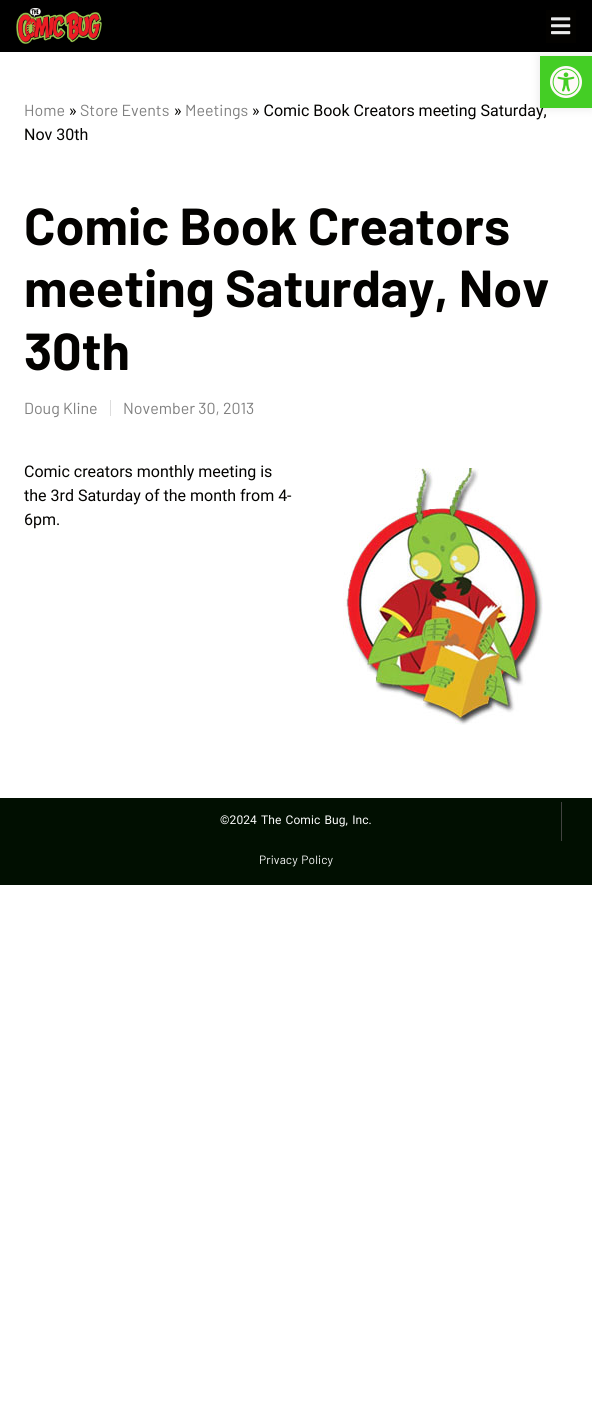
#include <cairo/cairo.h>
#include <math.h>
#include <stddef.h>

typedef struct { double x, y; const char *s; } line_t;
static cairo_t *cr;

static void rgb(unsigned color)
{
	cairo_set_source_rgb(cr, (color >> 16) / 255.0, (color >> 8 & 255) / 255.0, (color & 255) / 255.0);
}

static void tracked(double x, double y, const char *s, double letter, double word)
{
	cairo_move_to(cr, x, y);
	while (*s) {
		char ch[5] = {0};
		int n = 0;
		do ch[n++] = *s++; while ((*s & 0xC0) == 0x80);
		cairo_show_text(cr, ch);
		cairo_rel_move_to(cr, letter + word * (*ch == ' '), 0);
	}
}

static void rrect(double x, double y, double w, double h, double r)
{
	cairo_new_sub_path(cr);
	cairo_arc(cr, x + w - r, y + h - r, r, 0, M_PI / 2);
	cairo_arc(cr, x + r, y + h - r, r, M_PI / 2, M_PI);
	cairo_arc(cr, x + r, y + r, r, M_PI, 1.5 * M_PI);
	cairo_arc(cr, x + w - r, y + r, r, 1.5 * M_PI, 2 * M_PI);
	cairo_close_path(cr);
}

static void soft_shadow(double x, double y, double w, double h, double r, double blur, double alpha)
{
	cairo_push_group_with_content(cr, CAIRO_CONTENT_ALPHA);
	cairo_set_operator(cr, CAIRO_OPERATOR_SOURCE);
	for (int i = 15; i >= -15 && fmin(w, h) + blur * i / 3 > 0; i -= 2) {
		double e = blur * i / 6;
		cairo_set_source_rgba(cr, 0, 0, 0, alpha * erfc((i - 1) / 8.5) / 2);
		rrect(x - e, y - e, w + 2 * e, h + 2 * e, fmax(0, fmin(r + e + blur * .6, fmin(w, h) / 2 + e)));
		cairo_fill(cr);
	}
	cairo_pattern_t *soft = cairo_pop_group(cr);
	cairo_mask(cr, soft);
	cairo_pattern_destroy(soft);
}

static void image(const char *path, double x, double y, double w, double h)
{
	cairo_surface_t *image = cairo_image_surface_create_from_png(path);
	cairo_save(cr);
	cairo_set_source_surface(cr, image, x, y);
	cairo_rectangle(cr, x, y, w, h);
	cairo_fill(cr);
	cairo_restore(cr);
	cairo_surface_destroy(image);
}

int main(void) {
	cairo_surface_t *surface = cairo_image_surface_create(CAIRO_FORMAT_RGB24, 592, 1413);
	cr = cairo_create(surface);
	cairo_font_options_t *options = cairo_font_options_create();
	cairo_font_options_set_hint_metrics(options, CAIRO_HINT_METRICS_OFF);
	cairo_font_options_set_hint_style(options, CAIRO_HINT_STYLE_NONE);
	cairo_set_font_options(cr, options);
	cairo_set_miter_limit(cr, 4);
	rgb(0xffffff);
	cairo_paint(cr);
	rgb(0x000000);
	cairo_rectangle(cr, 0, 0, 592, 52);
	cairo_fill(cr);
	image("img/1.png", 16, 8, 86, 36);
	rgb(0x030200);
	cairo_rectangle(cr, 546, 10, 30, 33);
	cairo_fill(cr);
	image("img/2.png", 551, 17, 20, 18);
	rgb(0x000000);
	soft_shadow(540, 56, 52, 52, 0, 5, 0.1);
	rgb(0xdddddd);
	cairo_rectangle(cr, 110, 400, 1, 16);
	cairo_fill(cr);
	image("img/4.png", 343, 468, 200, 257);
	rgb(0x010f01);
	cairo_rectangle(cr, 0, 798, 592, 87);
	cairo_fill(cr);
	rgb(0x424240);
	cairo_rectangle(cr, 561, 802, 1, 39);
	cairo_fill(cr);
	cairo_select_font_face(cr, "Barlow", CAIRO_FONT_SLANT_NORMAL, CAIRO_FONT_WEIGHT_NORMAL);
	cairo_set_font_size(cr, 16);
	rgb(0x808080);
	cairo_move_to(cr, 24, 116);
	cairo_show_text(cr, "Home");
	cairo_select_font_face(cr, "Roboto", CAIRO_FONT_SLANT_NORMAL, CAIRO_FONT_WEIGHT_NORMAL);
	rgb(0x030200);
	cairo_move_to(cr, 69, 116);
	cairo_show_text(cr, "»");
	cairo_select_font_face(cr, "Barlow", CAIRO_FONT_SLANT_NORMAL, CAIRO_FONT_WEIGHT_NORMAL);
	rgb(0x808080);
	cairo_move_to(cr, 80, 116);
	cairo_show_text(cr, "Store Events");
	cairo_select_font_face(cr, "Roboto", CAIRO_FONT_SLANT_NORMAL, CAIRO_FONT_WEIGHT_NORMAL);
	rgb(0x030200);
	cairo_move_to(cr, 174, 116);
	cairo_show_text(cr, "»");
	cairo_select_font_face(cr, "Barlow", CAIRO_FONT_SLANT_NORMAL, CAIRO_FONT_WEIGHT_NORMAL);
	rgb(0x808080);
	cairo_move_to(cr, 185, 116);
	cairo_show_text(cr, "Meetings");
	cairo_select_font_face(cr, "Roboto", CAIRO_FONT_SLANT_NORMAL, CAIRO_FONT_WEIGHT_NORMAL);
	rgb(0x030200);
	cairo_move_to(cr, 252, 116);
	cairo_show_text(cr, "» Comic Book Creators meeting Saturday,");
	rgb(0x44ce25);
	cairo_rectangle(cr, 540, 56, 52, 52);
	cairo_fill(cr);
	image("img/3.png", 550, 66, 32, 32);
	rgb(0x030200);
	cairo_move_to(cr, 24, 140);
	cairo_show_text(cr, "Nov 30th");
	cairo_select_font_face(cr, "Barlow", CAIRO_FONT_SLANT_NORMAL, CAIRO_FONT_WEIGHT_BOLD);
	cairo_set_font_size(cr, 52);
	{
		static const line_t items[] = {
			{24, 245, "Comic Book Creators"},
			{24, 307, "meeting Saturday, Nov"},
			{24, 370, "30th"},
		};
		for (size_t i = 0; i < sizeof items / sizeof *items; i++) {
			cairo_move_to(cr, items[i].x, items[i].y);
			cairo_show_text(cr, items[i].s);
		}
	}
	cairo_select_font_face(cr, "Barlow", CAIRO_FONT_SLANT_NORMAL, CAIRO_FONT_WEIGHT_NORMAL);
	cairo_set_font_size(cr, 16);
	rgb(0x808080);
	cairo_move_to(cr, 24, 414);
	cairo_show_text(cr, "Doug Kline");
	cairo_move_to(cr, 123, 414);
	cairo_show_text(cr, "November 30, 2013");
	cairo_select_font_face(cr, "Roboto", CAIRO_FONT_SLANT_NORMAL, CAIRO_FONT_WEIGHT_NORMAL);
	rgb(0x030200);
	{
		static const line_t items[] = {
			{24, 477, "Comic creators monthly meeting is"},
			{24, 501, "the 3rd Saturday of the month from 4-"},
			{24, 525, "6pm."},
		};
		for (size_t i = 0; i < sizeof items / sizeof *items; i++) {
			cairo_move_to(cr, items[i].x, items[i].y);
			cairo_show_text(cr, items[i].s);
		}
	}
	cairo_set_font_size(cr, 12);
	rgb(0xfafafa);
	tracked(220, 824, "©2024 The Comic Bug, Inc.", 0.1, 1);
	cairo_select_font_face(cr, "Barlow", CAIRO_FONT_SLANT_NORMAL, CAIRO_FONT_WEIGHT_NORMAL);
	tracked(259, 864, "Privacy Policy", 0.1, 1);
	cairo_surface_write_to_png(surface, "page.png");
	cairo_font_options_destroy(options);
	cairo_destroy(cr);
	cairo_surface_destroy(surface);
	return 0;
}
